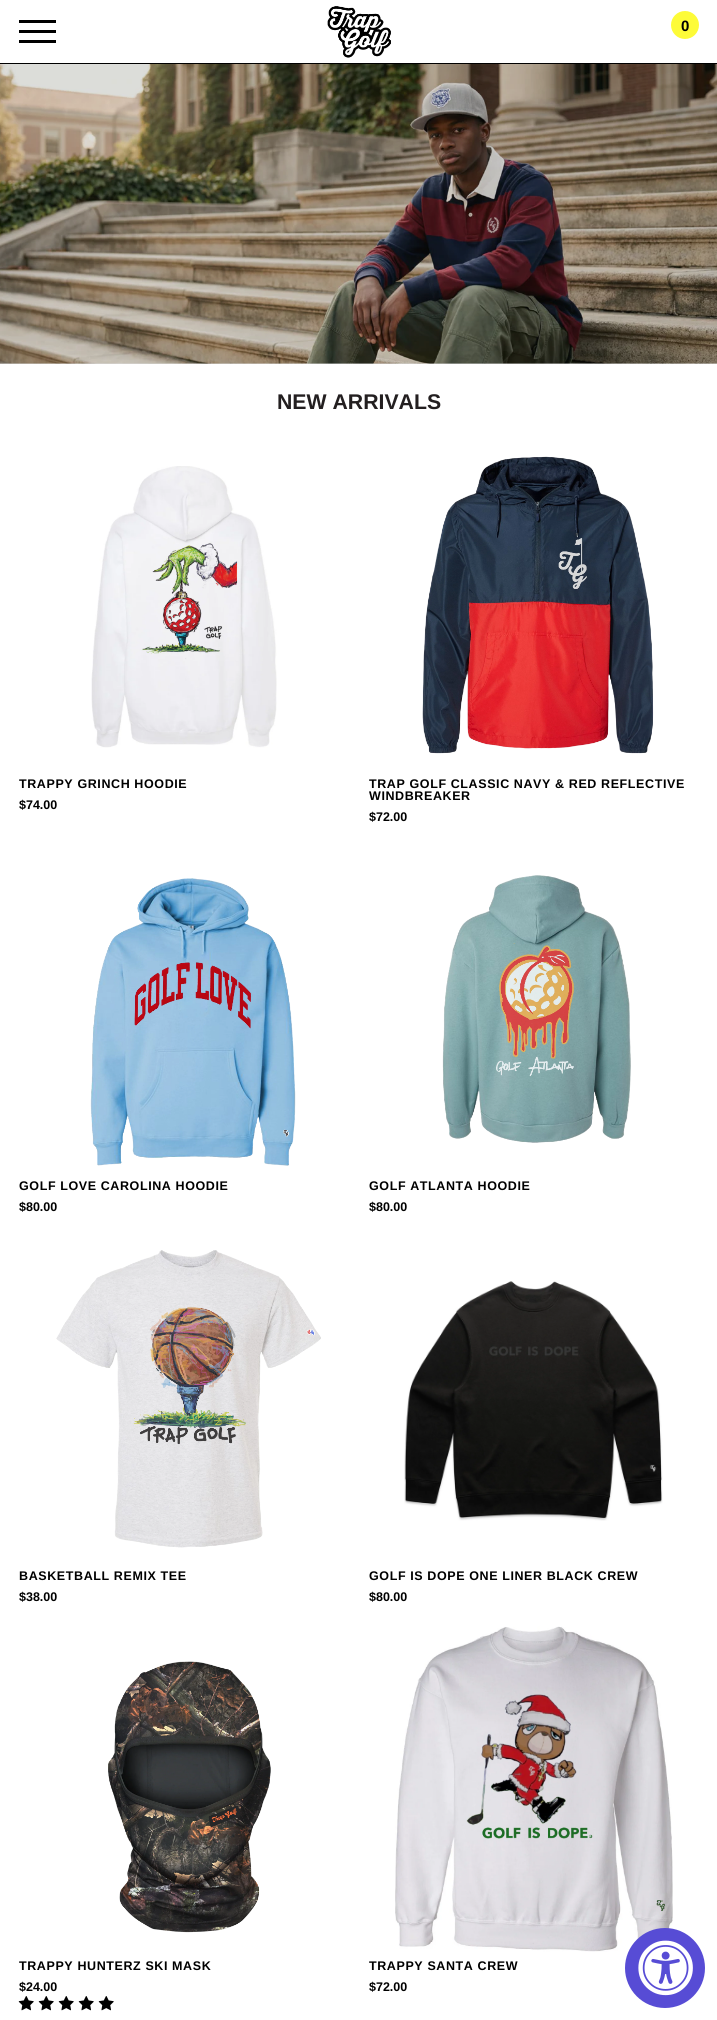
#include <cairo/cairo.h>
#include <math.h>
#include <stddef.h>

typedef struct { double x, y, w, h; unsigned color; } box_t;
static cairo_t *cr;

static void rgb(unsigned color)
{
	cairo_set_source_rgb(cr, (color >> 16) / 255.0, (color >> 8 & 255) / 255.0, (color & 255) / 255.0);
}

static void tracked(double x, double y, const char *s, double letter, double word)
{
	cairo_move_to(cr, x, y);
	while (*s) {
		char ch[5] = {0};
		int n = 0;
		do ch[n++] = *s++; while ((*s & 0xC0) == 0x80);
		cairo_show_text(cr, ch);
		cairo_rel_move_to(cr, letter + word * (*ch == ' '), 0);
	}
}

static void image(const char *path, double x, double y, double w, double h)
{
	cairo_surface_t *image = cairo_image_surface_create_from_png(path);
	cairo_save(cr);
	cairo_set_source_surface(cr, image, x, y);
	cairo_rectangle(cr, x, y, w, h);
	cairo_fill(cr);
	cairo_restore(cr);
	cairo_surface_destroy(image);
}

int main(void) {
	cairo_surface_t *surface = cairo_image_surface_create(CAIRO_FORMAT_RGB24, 717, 2020);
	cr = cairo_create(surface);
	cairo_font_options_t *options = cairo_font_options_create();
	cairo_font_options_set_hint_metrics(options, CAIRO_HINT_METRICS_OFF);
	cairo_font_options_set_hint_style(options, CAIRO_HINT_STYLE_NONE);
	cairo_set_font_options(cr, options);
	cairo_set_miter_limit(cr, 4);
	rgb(0xffffff);
	cairo_paint(cr);
	{
		static const box_t items[] = {
			{0, 363, 717, 1, 0xdddddd},
			{0, 63, 717, 1, 0x000000},
			{19, 30, 37, 3, 0x000000},
			{19, 20, 37, 3, 0x000000},
			{19, 40, 37, 3, 0x000000},
		};
		for (size_t i = 0; i < sizeof items / sizeof *items; i++) {
			rgb(items[i].color);
			cairo_rectangle(cr, items[i].x, items[i].y, items[i].w, items[i].h);
			cairo_fill(cr);
		}
	}
	image("img/1.png", 327, 6, 64, 52);
	rgb(0xfdfb38);
	cairo_arc(cr, 685, 25, 14, 0, 2 * M_PI);
	cairo_fill(cr);
	image("img/2.png", 0, 64, 717, 300);
	image("img/3.png", 91, 466, 186, 282);
	image("img/4.png", 422, 456, 232, 298);
	image("img/5.png", 90, 878, 206, 288);
	image("img/6.png", 442, 875, 189, 268);
	image("img/7.png", 56, 1250, 265, 298);
	image("img/8.png", 404, 1281, 259, 240);
	image("img/9.png", 108, 1661, 163, 272);
	image("img/10.png", 18, 1996, 16, 15);
	image("img/10.png", 38, 1996, 16, 15);
	image("img/10.png", 58, 1996, 16, 15);
	image("img/10.png", 78, 1996, 16, 15);
	image("img/10.png", 98, 1996, 16, 15);
	image("img/11.png", 395, 1626, 278, 326);
	rgb(0x574cd5);
	cairo_arc(cr, 665, 1968, 40, 0, 2 * M_PI);
	cairo_fill(cr);
	image("img/12.png", 638, 1940, 55, 56);
	cairo_select_font_face(cr, "Liberation Sans", CAIRO_FONT_SLANT_NORMAL, CAIRO_FONT_WEIGHT_BOLD);
	cairo_set_font_size(cr, 15);
	rgb(0x000000);
	cairo_move_to(cr, 681, 31);
	cairo_show_text(cr, "0");
	cairo_set_font_size(cr, 21.25);
	rgb(0x231f20);
	cairo_move_to(cr, 277, 409);
	cairo_show_text(cr, "NEW ARRIVALS");
	cairo_set_font_size(cr, 12.5);
	rgb(0x000000);
	tracked(19, 788, "TRAPPY GRINCH HOODIE", 0.6, 0);
	cairo_move_to(cr, 19, 809);
	cairo_show_text(cr, "$74.00");
	tracked(369, 788, "TRAP GOLF CLASSIC NAVY & RED REFLECTIVE", 0.6, 0);
	tracked(369, 800, "WINDBREAKER", 0.6, 0);
	cairo_move_to(cr, 369, 821);
	cairo_show_text(cr, "$72.00");
	tracked(19, 1190, "GOLF LOVE CAROLINA HOODIE", 0.6, 0);
	cairo_move_to(cr, 19, 1211);
	cairo_show_text(cr, "$80.00");
	tracked(369, 1190, "GOLF ATLANTA HOODIE", 0.6, 0);
	cairo_move_to(cr, 369, 1211);
	cairo_show_text(cr, "$80.00");
	tracked(19, 1580, "BASKETBALL REMIX TEE", 0.6, 0);
	cairo_move_to(cr, 19, 1601);
	cairo_show_text(cr, "$38.00");
	tracked(369, 1580, "GOLF IS DOPE ONE LINER BLACK CREW", 0.6, 0);
	cairo_move_to(cr, 369, 1601);
	cairo_show_text(cr, "$80.00");
	tracked(19, 1970, "TRAPPY HUNTERZ SKI MASK", 0.6, 0);
	cairo_move_to(cr, 19, 1991);
	cairo_show_text(cr, "$24.00");
	tracked(369, 1970, "TRAPPY SANTA CREW", 0.6, 0);
	cairo_move_to(cr, 369, 1991);
	cairo_show_text(cr, "$72.00");
	cairo_surface_write_to_png(surface, "page.png");
	cairo_font_options_destroy(options);
	cairo_destroy(cr);
	cairo_surface_destroy(surface);
	return 0;
}
